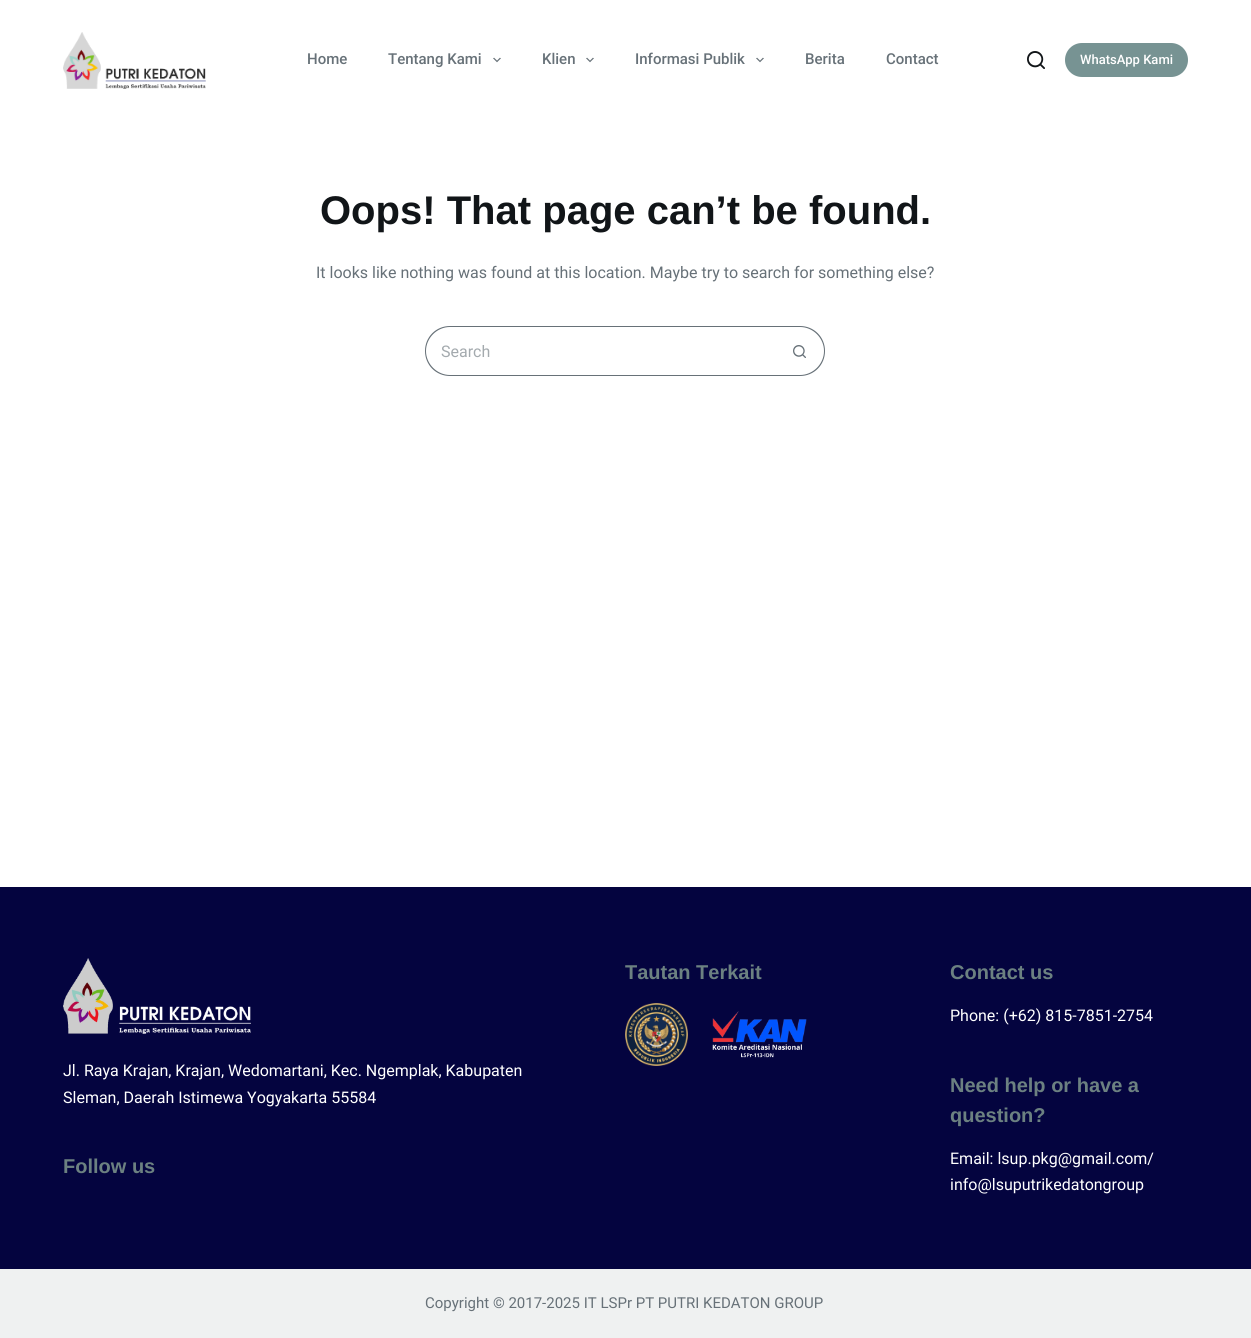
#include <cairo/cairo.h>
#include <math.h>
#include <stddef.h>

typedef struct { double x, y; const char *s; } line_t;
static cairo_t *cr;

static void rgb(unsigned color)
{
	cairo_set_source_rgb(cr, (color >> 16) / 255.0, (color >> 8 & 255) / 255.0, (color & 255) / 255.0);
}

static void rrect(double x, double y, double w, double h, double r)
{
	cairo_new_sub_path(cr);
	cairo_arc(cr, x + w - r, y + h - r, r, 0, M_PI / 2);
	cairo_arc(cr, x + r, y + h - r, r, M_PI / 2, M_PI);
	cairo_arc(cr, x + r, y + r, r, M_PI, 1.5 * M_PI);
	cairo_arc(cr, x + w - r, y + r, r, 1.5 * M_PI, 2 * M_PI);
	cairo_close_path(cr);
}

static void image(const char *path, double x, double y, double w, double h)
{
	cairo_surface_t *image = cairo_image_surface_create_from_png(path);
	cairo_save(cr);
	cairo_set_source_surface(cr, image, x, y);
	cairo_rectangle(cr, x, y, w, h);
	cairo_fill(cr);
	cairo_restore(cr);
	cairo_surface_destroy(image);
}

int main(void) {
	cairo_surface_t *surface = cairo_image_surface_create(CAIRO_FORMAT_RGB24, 1251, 1338);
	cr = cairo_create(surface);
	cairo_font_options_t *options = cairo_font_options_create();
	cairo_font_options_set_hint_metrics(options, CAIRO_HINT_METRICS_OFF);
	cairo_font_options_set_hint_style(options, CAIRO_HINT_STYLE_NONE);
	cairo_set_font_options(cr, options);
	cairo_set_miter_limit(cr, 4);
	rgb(0xffffff);
	cairo_paint(cr);
	image("img/1.png", 63, 32, 143, 57);
	image("img/2.png", 493, 57, 8, 6);
	image("img/2.png", 586, 57, 8, 6);
	image("img/2.png", 756, 57, 8, 6);
	image("img/3.png", 1027, 51, 18, 18);
	rgb(0x779393);
	rrect(1065, 43, 123, 34, 17);
	cairo_fill(cr);
	rgb(0x677178);
	cairo_set_fill_rule(cr, CAIRO_FILL_RULE_EVEN_ODD);
	cairo_new_path(cr);
	cairo_move_to(cr, 450, 326);
	cairo_line_to(cr, 775, 326);
	cairo_line_to(cr, 775, 376);
	cairo_line_to(cr, 450, 376);
	cairo_curve_to(cr, 436, 376, 425, 365, 425, 351);
	cairo_curve_to(cr, 425, 337, 436, 326, 450, 326);
	cairo_close_path(cr);
	cairo_move_to(cr, 450, 327);
	cairo_line_to(cr, 775, 327);
	cairo_line_to(cr, 775, 375);
	cairo_line_to(cr, 450, 375);
	cairo_curve_to(cr, 437, 375, 426, 364, 426, 351);
	cairo_curve_to(cr, 426, 338, 437, 327, 450, 327);
	cairo_close_path(cr);
	cairo_fill(cr);
	cairo_new_path(cr);
	cairo_move_to(cr, 775, 326);
	cairo_line_to(cr, 800, 326);
	cairo_curve_to(cr, 814, 326, 825, 337, 825, 351);
	cairo_curve_to(cr, 825, 365, 814, 376, 800, 376);
	cairo_line_to(cr, 775, 376);
	cairo_close_path(cr);
	cairo_move_to(cr, 775, 327);
	cairo_line_to(cr, 800, 327);
	cairo_curve_to(cr, 813, 327, 824, 338, 824, 351);
	cairo_curve_to(cr, 824, 364, 813, 375, 800, 375);
	cairo_line_to(cr, 775, 375);
	cairo_close_path(cr);
	cairo_fill(cr);
	image("img/4.png", 793, 345, 13, 13);
	rgb(0xeff1f1);
	cairo_rectangle(cr, 0, 1269, 1251, 69);
	cairo_fill(cr);
	rgb(0x04043f);
	cairo_rectangle(cr, 0, 887, 1251, 382);
	cairo_fill(cr);
	image("img/5.png", 63, 958, 188, 76);
	image("img/6.png", 625, 1003, 63, 63);
	image("img/7.png", 712, 1011, 95, 47);
	cairo_select_font_face(cr, "Roboto Medium", CAIRO_FONT_SLANT_NORMAL, CAIRO_FONT_WEIGHT_NORMAL);
	cairo_set_font_size(cr, 15);
	rgb(0x677178);
	{
		static const line_t items[] = {
			{307, 64, "Home"},
			{388, 64, "Tentang Kami"},
			{542, 64, "Klien"},
			{635, 64, "Informasi Publik"},
			{805, 64, "Berita"},
			{886, 64, "Contact"},
		};
		for (size_t i = 0; i < sizeof items / sizeof *items; i++) {
			cairo_move_to(cr, items[i].x, items[i].y);
			cairo_show_text(cr, items[i].s);
		}
	}
	cairo_set_font_size(cr, 13);
	rgb(0xffffff);
	cairo_move_to(cr, 1080, 64);
	cairo_show_text(cr, "WhatsApp Kami");
	cairo_select_font_face(cr, "Liberation Sans", CAIRO_FONT_SLANT_NORMAL, CAIRO_FONT_WEIGHT_BOLD);
	cairo_set_font_size(cr, 40);
	rgb(0x111518);
	cairo_move_to(cr, 320, 224);
	cairo_show_text(cr, "Oops! That page can’t be found.");
	cairo_select_font_face(cr, "Roboto", CAIRO_FONT_SLANT_NORMAL, CAIRO_FONT_WEIGHT_NORMAL);
	cairo_set_font_size(cr, 16);
	rgb(0x677178);
	cairo_move_to(cr, 316, 278);
	cairo_show_text(cr, "It looks like nothing was found at this location. Maybe try to search for something else?");
	rgb(0xa4aaae);
	cairo_move_to(cr, 441, 357);
	cairo_show_text(cr, "Search");
	rgb(0xffffff);
	cairo_move_to(cr, 63, 1076);
	cairo_show_text(cr, "Jl. Raya Krajan, Krajan, Wedomartani, Kec. Ngemplak, Kabupaten");
	cairo_move_to(cr, 63, 1103);
	cairo_show_text(cr, "Sleman, Daerah Istimewa Yogyakarta 55584");
	cairo_select_font_face(cr, "Liberation Sans", CAIRO_FONT_SLANT_NORMAL, CAIRO_FONT_WEIGHT_BOLD);
	cairo_set_font_size(cr, 20);
	rgb(0x6c8181);
	{
		static const line_t items[] = {
			{63, 1173, "Follow us"},
			{625, 979, "Tautan Terkait"},
			{950, 979, "Contact us"},
		};
		for (size_t i = 0; i < sizeof items / sizeof *items; i++) {
			cairo_move_to(cr, items[i].x, items[i].y);
			cairo_show_text(cr, items[i].s);
		}
	}
	cairo_select_font_face(cr, "Roboto", CAIRO_FONT_SLANT_NORMAL, CAIRO_FONT_WEIGHT_NORMAL);
	cairo_set_font_size(cr, 16);
	rgb(0xffffff);
	cairo_move_to(cr, 950, 1021);
	cairo_show_text(cr, "Phone: (+62) 815-7851-2754");
	cairo_select_font_face(cr, "Liberation Sans", CAIRO_FONT_SLANT_NORMAL, CAIRO_FONT_WEIGHT_BOLD);
	cairo_set_font_size(cr, 20);
	rgb(0x6c8181);
	cairo_move_to(cr, 950, 1092);
	cairo_show_text(cr, "Need help or have a");
	cairo_move_to(cr, 950, 1122);
	cairo_show_text(cr, "question?");
	cairo_select_font_face(cr, "Roboto", CAIRO_FONT_SLANT_NORMAL, CAIRO_FONT_WEIGHT_NORMAL);
	cairo_set_font_size(cr, 16);
	rgb(0xffffff);
	cairo_move_to(cr, 950, 1164);
	cairo_show_text(cr, "Email: lsup.pkg@gmail.com/");
	cairo_move_to(cr, 950, 1190);
	cairo_show_text(cr, "info@lsuputrikedatongroup");
	cairo_set_font_size(cr, 15);
	rgb(0x677178);
	cairo_move_to(cr, 425, 1308);
	cairo_show_text(cr, "Copyright © 2017-2025 IT LSPr PT PUTRI KEDATON GROUP");
	cairo_surface_write_to_png(surface, "page.png");
	cairo_font_options_destroy(options);
	cairo_destroy(cr);
	cairo_surface_destroy(surface);
	return 0;
}
